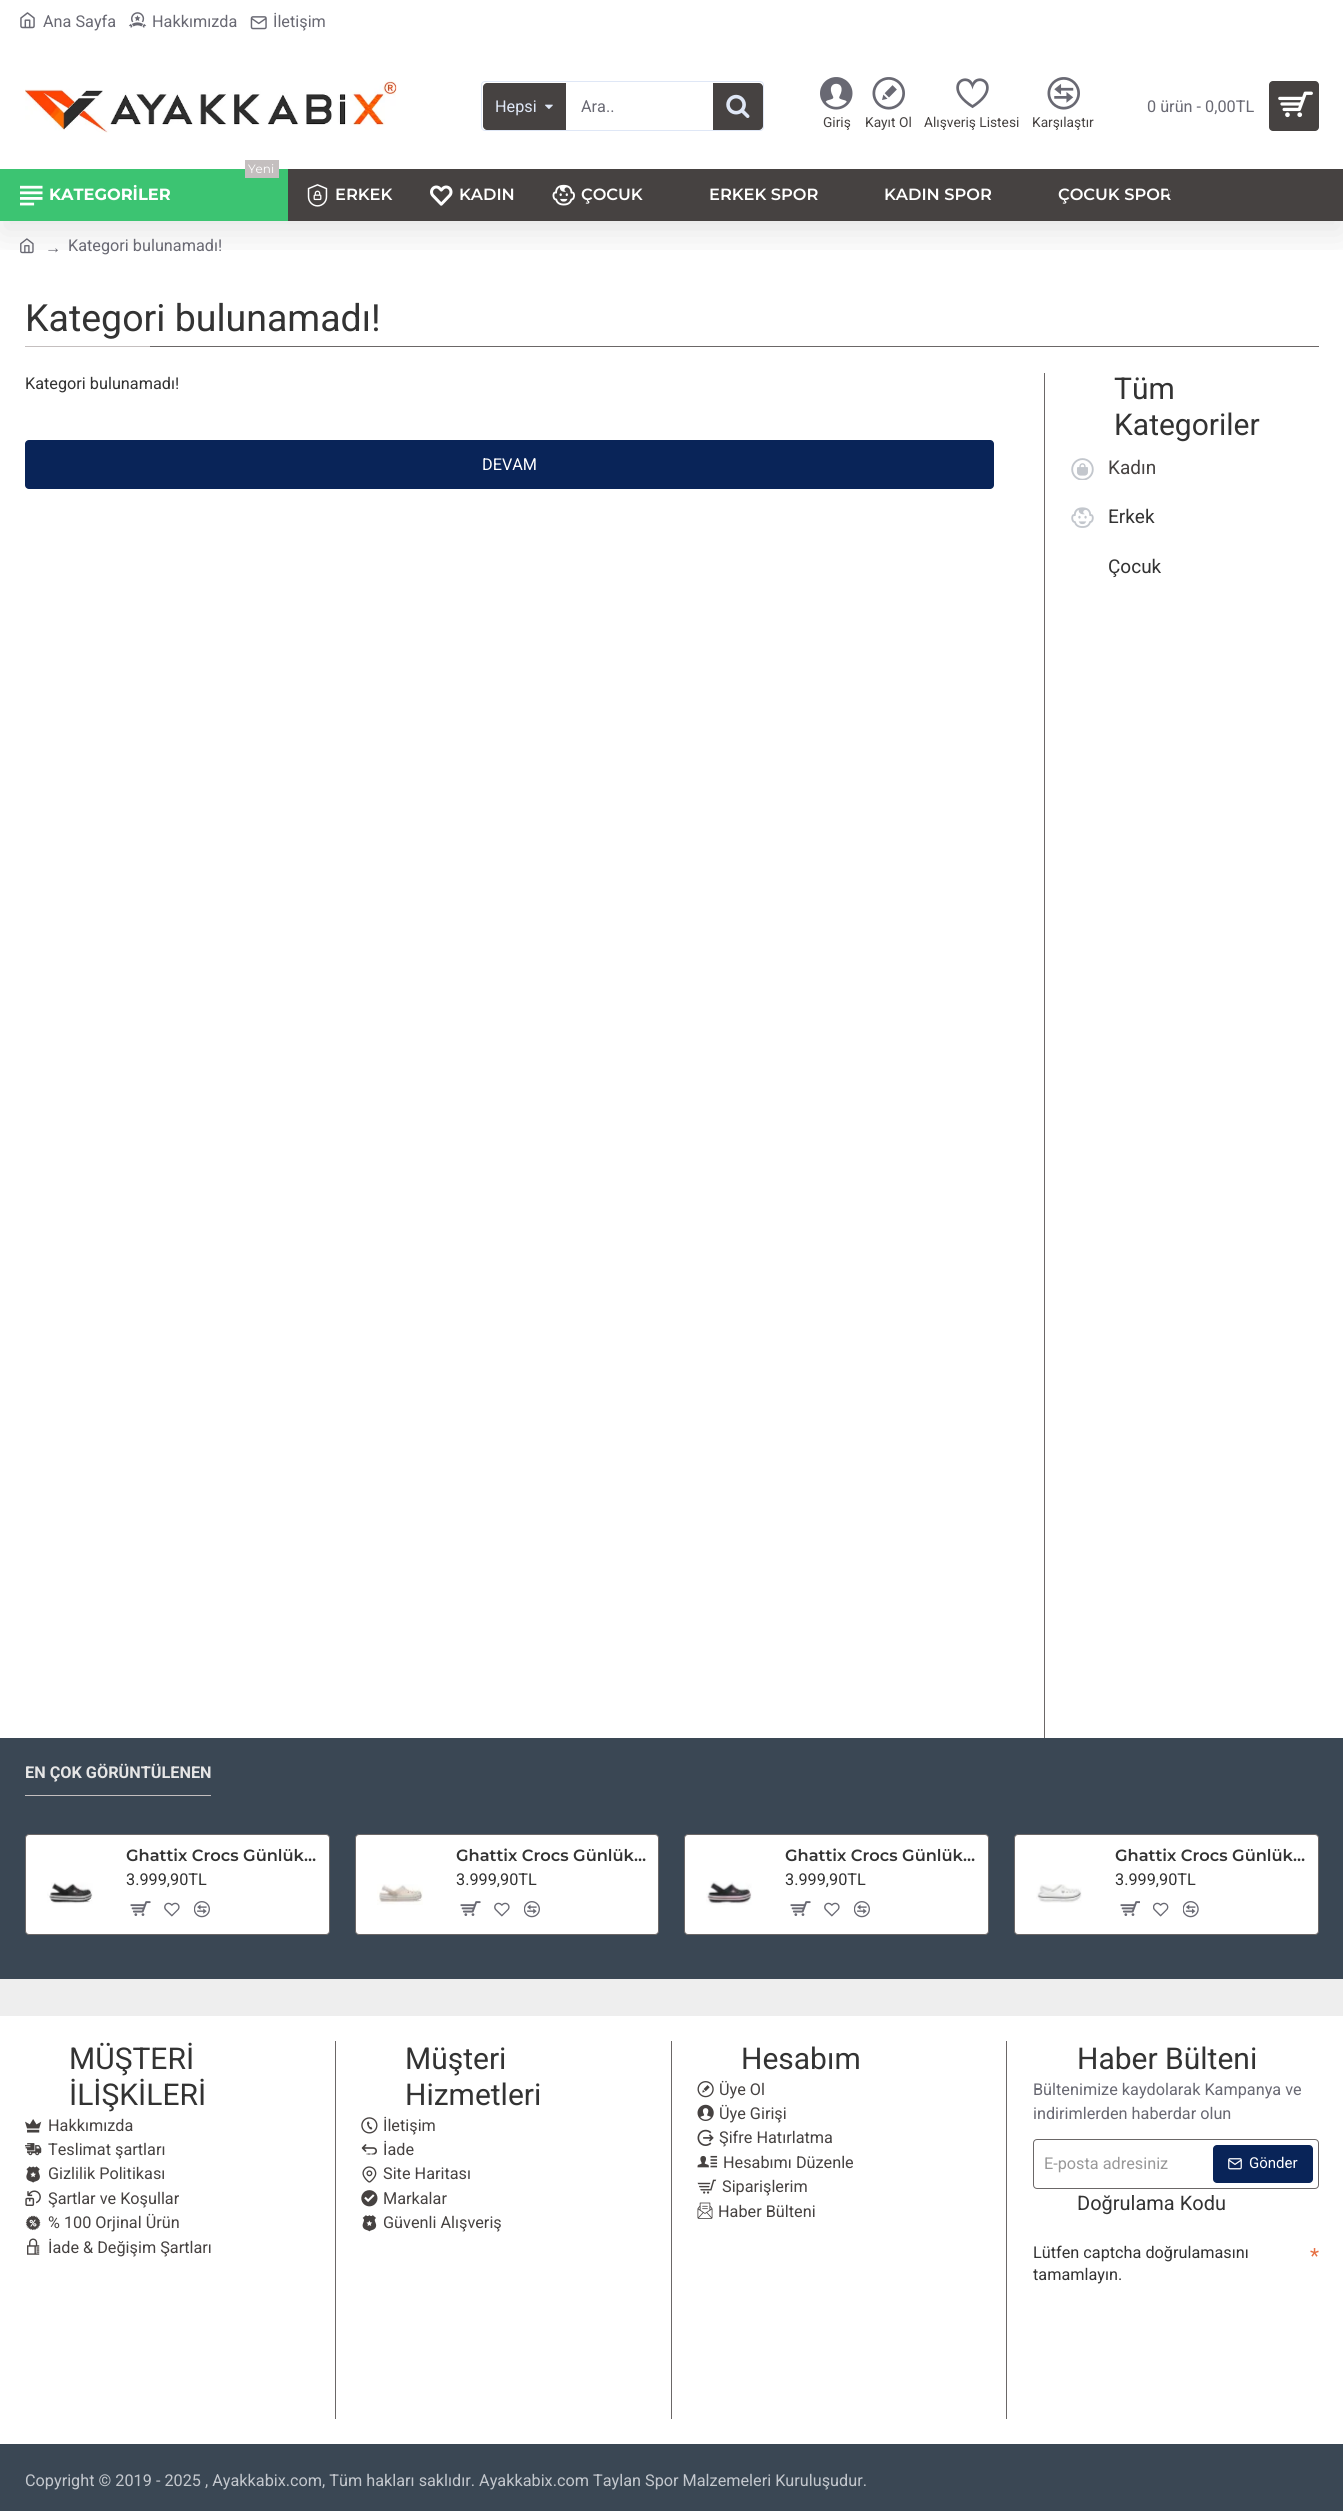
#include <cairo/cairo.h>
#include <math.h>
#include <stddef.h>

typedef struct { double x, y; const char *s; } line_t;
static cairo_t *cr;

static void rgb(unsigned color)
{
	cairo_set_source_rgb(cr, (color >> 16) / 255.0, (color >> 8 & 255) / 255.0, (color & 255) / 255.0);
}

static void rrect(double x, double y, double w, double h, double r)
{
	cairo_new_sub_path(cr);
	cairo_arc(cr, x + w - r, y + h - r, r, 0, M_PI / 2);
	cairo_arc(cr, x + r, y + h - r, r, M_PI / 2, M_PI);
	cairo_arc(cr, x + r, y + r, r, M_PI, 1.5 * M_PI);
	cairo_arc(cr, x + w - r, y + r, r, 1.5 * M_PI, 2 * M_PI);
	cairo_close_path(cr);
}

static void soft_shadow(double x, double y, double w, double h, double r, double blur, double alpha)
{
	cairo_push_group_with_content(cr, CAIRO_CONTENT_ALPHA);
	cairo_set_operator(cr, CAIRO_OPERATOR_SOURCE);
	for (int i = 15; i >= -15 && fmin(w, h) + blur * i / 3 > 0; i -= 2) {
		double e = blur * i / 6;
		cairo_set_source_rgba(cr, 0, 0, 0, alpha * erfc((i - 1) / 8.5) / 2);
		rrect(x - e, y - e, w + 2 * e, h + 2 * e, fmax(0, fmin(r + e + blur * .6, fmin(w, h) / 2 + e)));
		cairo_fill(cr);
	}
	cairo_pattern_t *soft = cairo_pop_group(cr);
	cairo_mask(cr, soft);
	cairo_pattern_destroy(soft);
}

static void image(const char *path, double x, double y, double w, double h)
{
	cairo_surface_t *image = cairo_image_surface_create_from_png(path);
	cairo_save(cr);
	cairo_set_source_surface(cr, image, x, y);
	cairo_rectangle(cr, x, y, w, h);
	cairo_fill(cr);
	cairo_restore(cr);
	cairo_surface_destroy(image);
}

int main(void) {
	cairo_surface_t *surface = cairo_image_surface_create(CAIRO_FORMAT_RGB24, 1343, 2511);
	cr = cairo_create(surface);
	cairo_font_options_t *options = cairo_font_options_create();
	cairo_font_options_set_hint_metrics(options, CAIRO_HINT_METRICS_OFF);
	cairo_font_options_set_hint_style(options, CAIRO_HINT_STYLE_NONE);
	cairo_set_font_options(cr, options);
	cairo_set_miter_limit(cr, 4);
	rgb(0xffffff);
	cairo_paint(cr);
	image("img/17.png", 20, 238, 14, 16);
	cairo_save(cr);
	cairo_rectangle(cr, 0, 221, 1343, 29);
	cairo_clip(cr);
	rgb(0x000000);
	soft_shadow(0, 13, 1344, 221, 0, 19, 0.1);
	cairo_restore(cr);
	image("img/1.png", 20, 12, 15, 17);
	image("img/2.png", 128, 12, 19, 16);
	image("img/3.png", 250, 16, 17, 14);
	image("img/4.png", 25, 80, 372, 53);
	rrect(481.5, 81.5, 282, 49, 3.5);
	rgb(0xdfe7f6);
	cairo_set_line_width(cr, 1);
	cairo_stroke(cr);
	rgb(0x464241);
	cairo_new_path(cr);
	cairo_move_to(cr, 487, 83);
	cairo_line_to(cr, 566, 83);
	cairo_line_to(cr, 566, 130);
	cairo_line_to(cr, 487, 130);
	cairo_curve_to(cr, 485, 130, 483, 128, 483, 126);
	cairo_line_to(cr, 483, 87);
	cairo_curve_to(cr, 483, 85, 485, 83, 487, 83);
	cairo_close_path(cr);
	cairo_fill(cr);
	image("img/5.png", 545, 104, 8, 5);
	cairo_new_path(cr);
	cairo_move_to(cr, 713, 83);
	cairo_line_to(cr, 759, 83);
	cairo_curve_to(cr, 761, 83, 763, 85, 763, 87);
	cairo_line_to(cr, 763, 126);
	cairo_curve_to(cr, 763, 128, 761, 130, 759, 130);
	cairo_line_to(cr, 713, 130);
	cairo_close_path(cr);
	cairo_fill(cr);
	image("img/6.png", 726, 94, 24, 24);
	rrect(1269, 81, 50, 50, 4);
	cairo_fill(cr);
	image("img/7.png", 1278, 91, 35, 27);
	image("img/8.png", 820, 77, 33, 33);
	image("img/9.png", 872, 77, 33, 33);
	image("img/10.png", 956, 78, 33, 31);
	image("img/11.png", 1047, 77, 33, 33);
	rgb(0x3cc472);
	cairo_rectangle(cr, 0, 169, 288, 52);
	cairo_fill(cr);
	rgb(0xc4bfbf);
	cairo_rectangle(cr, 245, 160, 34, 18);
	cairo_fill(cr);
	image("img/12.png", 20, 185, 23, 21);
	rgb(0x464241);
	cairo_rectangle(cr, 288, 169, 1055, 52);
	cairo_fill(cr);
	image("img/13.png", 307, 184, 21, 23);
	image("img/14.png", 430, 185, 23, 21);
	image("img/15.png", 552, 184, 23, 22);
	rgb(0x6b6767);
	cairo_rectangle(cr, 150, 346, 1169, 1);
	cairo_fill(cr);
	rgb(0xc4bfbf);
	cairo_rectangle(cr, 25, 346, 125, 1);
	cairo_fill(cr);
	rgb(0x092458);
	rrect(25, 440, 969, 49, 4);
	cairo_fill(cr);
	rgb(0x6b6767);
	cairo_rectangle(cr, 1044, 373, 1, 1365);
	cairo_fill(cr);
	image("img/18.png", 1071, 458, 23, 22);
	image("img/19.png", 1071, 507, 23, 21);
	rgb(0x3a4754);
	cairo_rectangle(cr, 0, 1738, 1343, 241);
	cairo_fill(cr);
	rgb(0xc4bfbf);
	cairo_rectangle(cr, 25, 1795, 186, 1);
	cairo_fill(cr);
	rgb(0xffffff);
	rrect(25.5, 1834.5, 304, 100, 3.5);
	cairo_fill_preserve(cr);
	rgb(0x6b6767);
	cairo_stroke(cr);
	image("img/20.png", 130, 1901, 21, 15);
	image("img/21.png", 164, 1902, 16, 15);
	image("img/22.png", 194, 1901, 16, 17);
	image("img/23.png", 47, 1882, 46, 22);
	rgb(0xffffff);
	rrect(355.5, 1834.5, 303, 100, 3.5);
	cairo_fill_preserve(cr);
	rgb(0x6b6767);
	cairo_stroke(cr);
	image("img/20.png", 460, 1901, 21, 15);
	image("img/21.png", 494, 1902, 16, 15);
	image("img/22.png", 524, 1901, 16, 17);
	image("img/24.png", 377, 1884, 46, 21);
	rgb(0xffffff);
	rrect(684.5, 1834.5, 304, 100, 3.5);
	cairo_fill_preserve(cr);
	rgb(0x6b6767);
	cairo_stroke(cr);
	image("img/20.png", 790, 1901, 21, 15);
	image("img/21.png", 824, 1902, 16, 15);
	image("img/22.png", 854, 1901, 16, 17);
	image("img/25.png", 706, 1881, 46, 24);
	rgb(0xffffff);
	rrect(1014.5, 1834.5, 304, 100, 3.5);
	cairo_fill_preserve(cr);
	rgb(0x6b6767);
	cairo_stroke(cr);
	image("img/26.png", 1120, 1901, 20, 15);
	image("img/27.png", 1153, 1902, 16, 15);
	image("img/28.png", 1183, 1901, 16, 17);
	image("img/29.png", 1036, 1884, 46, 19);
	rgb(0xeeeeee);
	cairo_rectangle(cr, 0, 1979, 1343, 37);
	cairo_fill(cr);
	rgb(0x6b6767);
	cairo_rectangle(cr, 335, 2041, 1, 378);
	cairo_fill(cr);
	image("img/30.png", 25, 2119, 17, 14);
	image("img/31.png", 25, 2143, 17, 13);
	image("img/32.png", 26, 2166, 14, 17);
	image("img/33.png", 25, 2190, 16, 16);
	image("img/34.png", 25, 2215, 16, 16);
	image("img/35.png", 27, 2238, 13, 17);
	cairo_rectangle(cr, 671, 2041, 1, 378);
	cairo_fill(cr);
	image("img/36.png", 361, 2117, 17, 17);
	image("img/37.png", 361, 2144, 16, 11);
	image("img/38.png", 362, 2166, 15, 17);
	image("img/39.png", 361, 2190, 17, 17);
	image("img/40.png", 362, 2215, 15, 17);
	cairo_rectangle(cr, 1006, 2041, 1, 378);
	cairo_fill(cr);
	image("img/41.png", 697, 2081, 17, 17);
	image("img/42.png", 697, 2104, 17, 17);
	image("img/43.png", 697, 2129, 17, 17);
	image("img/44.png", 697, 2155, 21, 13);
	image("img/45.png", 697, 2179, 20, 15);
	image("img/46.png", 697, 2202, 16, 17);
	rrect(1033.5, 2139.5, 285, 49, 3.5);
	cairo_stroke(cr);
	rgb(0x092458);
	rrect(1213, 2145, 100, 38, 4);
	cairo_fill(cr);
	image("img/47.png", 1228, 2158, 14, 12);
	rgb(0x3a4754);
	cairo_rectangle(cr, 0, 2444, 1343, 67);
	cairo_fill(cr);
	cairo_select_font_face(cr, "Roboto", CAIRO_FONT_SLANT_NORMAL, CAIRO_FONT_WEIGHT_NORMAL);
	cairo_set_font_size(cr, 16.25);
	rgb(0x696973);
	{
		static const line_t items[] = {
			{43, 27, "Ana Sayfa"},
			{152, 27, "Hakkımızda"},
			{273, 27, "İletişim"},
		};
		for (size_t i = 0; i < sizeof items / sizeof *items; i++) {
			cairo_move_to(cr, items[i].x, items[i].y);
			cairo_show_text(cr, items[i].s);
		}
	}
	rgb(0xdfe7f6);
	cairo_move_to(cr, 495, 112);
	cairo_show_text(cr, "Hepsi");
	rgb(0x696973);
	cairo_move_to(cr, 581, 112);
	cairo_show_text(cr, "Ara..");
	cairo_move_to(cr, 1147, 112);
	cairo_show_text(cr, "0 ürün - 0,00TL");
	cairo_set_font_size(cr, 13.75);
	rgb(0x464241);
	{
		static const line_t items[] = {
			{823, 127, "Giriş"},
			{865, 127, "Kayıt Ol"},
			{924, 127, "Alışveriş Listesi"},
			{1032, 127, "Karşılaştır"},
		};
		for (size_t i = 0; i < sizeof items / sizeof *items; i++) {
			cairo_move_to(cr, items[i].x, items[i].y);
			cairo_show_text(cr, items[i].s);
		}
	}
	cairo_select_font_face(cr, "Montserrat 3 Thin", CAIRO_FONT_SLANT_NORMAL, CAIRO_FONT_WEIGHT_NORMAL);
	cairo_set_font_size(cr, 12);
	rgb(0xffffff);
	cairo_move_to(cr, 248, 173);
	cairo_show_text(cr, "Yeni");
	cairo_select_font_face(cr, "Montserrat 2 Thin", CAIRO_FONT_SLANT_NORMAL, CAIRO_FONT_WEIGHT_NORMAL);
	cairo_set_font_size(cr, 16.25);
	cairo_move_to(cr, 49, 200);
	cairo_show_text(cr, "KATEGORİLER");
	cairo_select_font_face(cr, "Montserrat Thin", CAIRO_FONT_SLANT_NORMAL, CAIRO_FONT_WEIGHT_NORMAL);
	{
		static const line_t items[] = {
			{335, 200, "ERKEK"},
			{459, 200, "KADIN"},
			{581, 200, "ÇOCUK"},
			{709, 200, "ERKEK SPOR"},
			{884, 200, "KADIN SPOR"},
			{1058, 200, "ÇOCUK SPOR"},
		};
		for (size_t i = 0; i < sizeof items / sizeof *items; i++) {
			cairo_move_to(cr, items[i].x, items[i].y);
			cairo_show_text(cr, items[i].s);
		}
	}
	image("img/16.png", 1167, 188, 5, 8);
	cairo_select_font_face(cr, "Liberation Serif", CAIRO_FONT_SLANT_NORMAL, CAIRO_FONT_WEIGHT_NORMAL);
	rgb(0x696973);
	cairo_move_to(cr, 45, 253);
	cairo_show_text(cr, "→");
	cairo_select_font_face(cr, "Roboto", CAIRO_FONT_SLANT_NORMAL, CAIRO_FONT_WEIGHT_NORMAL);
	cairo_move_to(cr, 68, 251);
	cairo_show_text(cr, "Kategori bulunamadı!");
	cairo_set_font_size(cr, 37.5);
	rgb(0x333333);
	cairo_move_to(cr, 25, 331);
	cairo_show_text(cr, "Kategori bulunamadı!");
	cairo_set_font_size(cr, 16.25);
	cairo_move_to(cr, 25, 389);
	cairo_show_text(cr, "Kategori bulunamadı!");
	rgb(0xffffff);
	cairo_move_to(cr, 482, 470);
	cairo_show_text(cr, "DEVAM");
	cairo_set_font_size(cr, 30);
	rgb(0x333333);
	cairo_move_to(cr, 1114, 399);
	cairo_show_text(cr, "Tüm");
	cairo_move_to(cr, 1114, 435);
	cairo_show_text(cr, "Kategoriler");
	cairo_set_font_size(cr, 19);
	rgb(0x464241);
	cairo_move_to(cr, 1108, 474);
	cairo_show_text(cr, "Kadın");
	rgb(0x333333);
	cairo_move_to(cr, 1108, 523);
	cairo_show_text(cr, "Erkek");
	cairo_move_to(cr, 1108, 573);
	cairo_show_text(cr, "Çocuk");
	cairo_select_font_face(cr, "Roboto", CAIRO_FONT_SLANT_NORMAL, CAIRO_FONT_WEIGHT_BOLD);
	cairo_set_font_size(cr, 16.25);
	rgb(0xe6e6e6);
	cairo_move_to(cr, 25, 1778);
	cairo_show_text(cr, "EN ÇOK GÖRÜNTÜLENEN");
	cairo_select_font_face(cr, "Montserrat Thin", CAIRO_FONT_SLANT_NORMAL, CAIRO_FONT_WEIGHT_NORMAL);
	rgb(0x333333);
	cairo_move_to(cr, 126, 1861);
	cairo_show_text(cr, "Ghattix Crocs Günlük…");
	cairo_select_font_face(cr, "Roboto", CAIRO_FONT_SLANT_NORMAL, CAIRO_FONT_WEIGHT_NORMAL);
	cairo_move_to(cr, 126, 1885);
	cairo_show_text(cr, "3.999,90TL");
	cairo_select_font_face(cr, "Montserrat Thin", CAIRO_FONT_SLANT_NORMAL, CAIRO_FONT_WEIGHT_NORMAL);
	cairo_move_to(cr, 456, 1861);
	cairo_show_text(cr, "Ghattix Crocs Günlük…");
	cairo_select_font_face(cr, "Roboto", CAIRO_FONT_SLANT_NORMAL, CAIRO_FONT_WEIGHT_NORMAL);
	cairo_move_to(cr, 456, 1885);
	cairo_show_text(cr, "3.999,90TL");
	cairo_select_font_face(cr, "Montserrat Thin", CAIRO_FONT_SLANT_NORMAL, CAIRO_FONT_WEIGHT_NORMAL);
	cairo_move_to(cr, 785, 1861);
	cairo_show_text(cr, "Ghattix Crocs Günlük…");
	cairo_select_font_face(cr, "Roboto", CAIRO_FONT_SLANT_NORMAL, CAIRO_FONT_WEIGHT_NORMAL);
	cairo_move_to(cr, 785, 1885);
	cairo_show_text(cr, "3.999,90TL");
	cairo_select_font_face(cr, "Montserrat Thin", CAIRO_FONT_SLANT_NORMAL, CAIRO_FONT_WEIGHT_NORMAL);
	cairo_move_to(cr, 1115, 1861);
	cairo_show_text(cr, "Ghattix Crocs Günlük…");
	cairo_select_font_face(cr, "Roboto", CAIRO_FONT_SLANT_NORMAL, CAIRO_FONT_WEIGHT_NORMAL);
	cairo_move_to(cr, 1115, 1885);
	cairo_show_text(cr, "3.999,90TL");
	cairo_set_font_size(cr, 30);
	cairo_move_to(cr, 69, 2069);
	cairo_show_text(cr, "MÜŞTERİ");
	cairo_move_to(cr, 69, 2105);
	cairo_show_text(cr, "İLİŞKİLERİ");
	cairo_set_font_size(cr, 16.25);
	rgb(0x464241);
	{
		static const line_t items[] = {
			{48, 2131, "Hakkımızda"},
			{48, 2155, "Teslimat şartları"},
			{48, 2179, "Gizlilik Politikası"},
			{48, 2204, "Şartlar ve Koşullar"},
			{48, 2228, "% 100 Orjinal Ürün"},
			{48, 2253, "İade & Değişim Şartları"},
		};
		for (size_t i = 0; i < sizeof items / sizeof *items; i++) {
			cairo_move_to(cr, items[i].x, items[i].y);
			cairo_show_text(cr, items[i].s);
		}
	}
	cairo_set_font_size(cr, 30);
	rgb(0x333333);
	cairo_move_to(cr, 405, 2069);
	cairo_show_text(cr, "Müşteri");
	cairo_move_to(cr, 405, 2105);
	cairo_show_text(cr, "Hizmetleri");
	cairo_set_font_size(cr, 16.25);
	rgb(0x464241);
	{
		static const line_t items[] = {
			{383, 2131, "İletişim"},
			{383, 2155, "İade"},
			{383, 2179, "Site Haritası"},
			{383, 2204, "Markalar"},
			{383, 2228, "Güvenli Alışveriş"},
		};
		for (size_t i = 0; i < sizeof items / sizeof *items; i++) {
			cairo_move_to(cr, items[i].x, items[i].y);
			cairo_show_text(cr, items[i].s);
		}
	}
	cairo_set_font_size(cr, 30);
	rgb(0x333333);
	cairo_move_to(cr, 741, 2069);
	cairo_show_text(cr, "Hesabım");
	cairo_set_font_size(cr, 16.25);
	rgb(0x464241);
	{
		static const line_t items[] = {
			{719, 2095, "Üye Ol"},
			{719, 2119, "Üye Girişi"},
			{719, 2143, "Şifre Hatırlatma"},
			{723, 2168, "Hesabımı Düzenle"},
			{722, 2192, "Siparişlerim"},
			{718, 2217, "Haber Bülteni"},
		};
		for (size_t i = 0; i < sizeof items / sizeof *items; i++) {
			cairo_move_to(cr, items[i].x, items[i].y);
			cairo_show_text(cr, items[i].s);
		}
	}
	cairo_set_font_size(cr, 30);
	rgb(0x333333);
	cairo_move_to(cr, 1077, 2069);
	cairo_show_text(cr, "Haber Bülteni");
	cairo_set_font_size(cr, 16.25);
	rgb(0x696973);
	cairo_move_to(cr, 1033, 2095);
	cairo_show_text(cr, "Bültenimize kaydolarak Kampanya ve");
	cairo_move_to(cr, 1033, 2119);
	cairo_show_text(cr, "indirimlerden haberdar olun");
	rgb(0x999999);
	cairo_move_to(cr, 1044, 2169);
	cairo_show_text(cr, "E-posta adresiniz");
	cairo_set_font_size(cr, 15);
	rgb(0xffffff);
	cairo_move_to(cr, 1249, 2168);
	cairo_show_text(cr, "Gönder");
	cairo_set_font_size(cr, 20);
	rgb(0x333333);
	cairo_move_to(cr, 1077, 2210);
	cairo_show_text(cr, "Doğrulama Kodu");
	cairo_set_font_size(cr, 16.25);
	cairo_move_to(cr, 1033, 2258);
	cairo_show_text(cr, "Lütfen captcha doğrulamasını");
	cairo_set_font_size(cr, 21);
	rgb(0xe66f42);
	cairo_move_to(cr, 1310, 2263);
	cairo_show_text(cr, "*");
	cairo_set_font_size(cr, 16.25);
	rgb(0x333333);
	cairo_move_to(cr, 1033, 2280);
	cairo_show_text(cr, "tamamlayın.");
	rgb(0xc3c7cd);
	cairo_move_to(cr, 25, 2486);
	cairo_show_text(cr, "Copyright © 2019 - 2025 , Ayakkabix.com, Tüm hakları saklıdır. Ayakkabix.com Taylan Spor Malzemeleri Kuruluşudur.");
	cairo_surface_write_to_png(surface, "page.png");
	cairo_font_options_destroy(options);
	cairo_destroy(cr);
	cairo_surface_destroy(surface);
	return 0;
}
